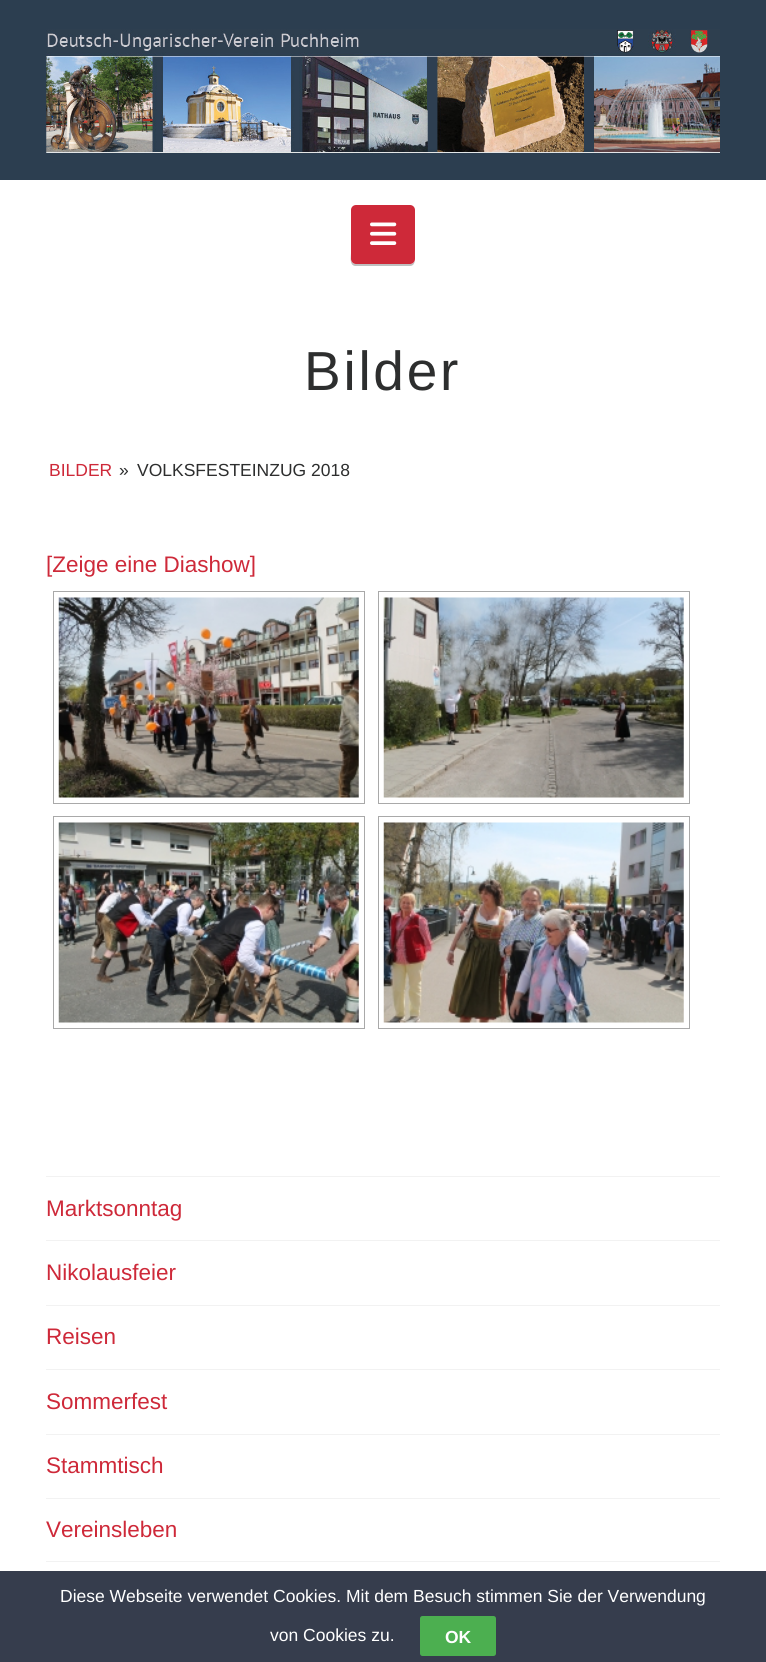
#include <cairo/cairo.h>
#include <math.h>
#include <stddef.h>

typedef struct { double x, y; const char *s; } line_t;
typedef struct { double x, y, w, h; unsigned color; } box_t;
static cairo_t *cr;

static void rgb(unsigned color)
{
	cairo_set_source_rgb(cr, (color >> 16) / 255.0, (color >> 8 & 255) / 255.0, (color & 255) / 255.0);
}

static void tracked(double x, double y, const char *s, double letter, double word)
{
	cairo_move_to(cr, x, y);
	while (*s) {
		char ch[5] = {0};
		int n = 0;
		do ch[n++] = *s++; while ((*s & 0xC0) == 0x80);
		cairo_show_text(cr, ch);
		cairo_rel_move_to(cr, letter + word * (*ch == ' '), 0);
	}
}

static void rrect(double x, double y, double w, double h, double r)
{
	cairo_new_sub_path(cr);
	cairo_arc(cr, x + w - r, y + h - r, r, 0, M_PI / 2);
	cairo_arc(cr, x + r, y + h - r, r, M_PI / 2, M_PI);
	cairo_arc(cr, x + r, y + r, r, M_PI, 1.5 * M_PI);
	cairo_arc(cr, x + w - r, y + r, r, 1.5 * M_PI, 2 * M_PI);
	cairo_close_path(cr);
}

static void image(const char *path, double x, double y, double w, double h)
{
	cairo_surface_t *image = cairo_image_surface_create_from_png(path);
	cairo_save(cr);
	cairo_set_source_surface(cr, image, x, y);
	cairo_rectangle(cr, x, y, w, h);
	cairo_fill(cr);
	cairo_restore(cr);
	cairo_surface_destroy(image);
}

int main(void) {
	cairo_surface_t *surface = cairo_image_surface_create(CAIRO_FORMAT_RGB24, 766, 1662);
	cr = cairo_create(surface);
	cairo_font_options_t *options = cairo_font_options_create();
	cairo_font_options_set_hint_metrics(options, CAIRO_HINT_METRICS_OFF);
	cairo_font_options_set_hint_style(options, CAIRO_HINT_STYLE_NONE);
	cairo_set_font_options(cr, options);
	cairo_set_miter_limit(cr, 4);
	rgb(0xffffff);
	cairo_paint(cr);
	rgb(0x2c3e50);
	cairo_rectangle(cr, 0, 0, 766, 180);
	cairo_fill(cr);
	image("img/1.png", 46, 29, 674, 124);
	rgb(0xbfbfbf);
	cairo_new_path(cr);
	cairo_move_to(cr, 351, 211);
	cairo_line_to(cr, 351, 253);
	cairo_curve_to(cr, 351, 257, 349, 265, 355, 266);
	cairo_line_to(cr, 410, 266);
	cairo_curve_to(cr, 414, 266, 415, 262, 415, 259);
	cairo_curve_to(cr, 415, 262, 413, 264, 410, 264);
	cairo_line_to(cr, 356, 264);
	cairo_curve_to(cr, 353, 264, 351, 262, 351, 259);
	cairo_close_path(cr);
	cairo_fill(cr);
	rgb(0xce2939);
	rrect(351, 205, 64, 59, 5);
	cairo_fill(cr);
	image("img/2.png", 370, 222, 27, 23);
	cairo_rectangle(cr, 53.5, 591.5, 311, 212);
	rgb(0xa9a9a9);
	cairo_set_line_width(cr, 1);
	cairo_stroke(cr);
	image("img/3.png", 58, 597, 301, 201);
	cairo_rectangle(cr, 378.5, 591.5, 311, 212);
	cairo_stroke(cr);
	image("img/4.png", 383, 597, 301, 201);
	cairo_rectangle(cr, 53.5, 816.5, 311, 212);
	cairo_stroke(cr);
	image("img/5.png", 58, 822, 301, 201);
	cairo_rectangle(cr, 378.5, 816.5, 311, 212);
	cairo_stroke(cr);
	image("img/6.png", 383, 822, 301, 201);
	{
		static const box_t items[] = {
			{46, 1561, 674, 1, 0xf2f2f2},
			{46, 1176, 674, 1, 0xf2f2f2},
			{46, 1240, 674, 1, 0xf2f2f2},
			{46, 1305, 674, 1, 0xf2f2f2},
			{46, 1369, 674, 1, 0xf2f2f2},
			{46, 1434, 674, 1, 0xf2f2f2},
			{46, 1498, 674, 1, 0xf2f2f2},
			{0, 1571, 766, 91, 0x363d4d},
		};
		for (size_t i = 0; i < sizeof items / sizeof *items; i++) {
			rgb(items[i].color);
			cairo_rectangle(cr, items[i].x, items[i].y, items[i].w, items[i].h);
			cairo_fill(cr);
		}
	}
	rgb(0x4caf50);
	rrect(420, 1616, 76, 40, 2.5);
	cairo_fill(cr);
	cairo_select_font_face(cr, "Liberation Sans", CAIRO_FONT_SLANT_NORMAL, CAIRO_FONT_WEIGHT_NORMAL);
	cairo_set_font_size(cr, 55);
	rgb(0x2d2e2e);
	tracked(304, 390, "Bilder", 2.75, 0);
	cairo_set_font_size(cr, 17.5);
	rgb(0xce2939);
	cairo_move_to(cr, 49, 476);
	cairo_show_text(cr, "BILDER");
	rgb(0x2d2e2e);
	cairo_move_to(cr, 119, 476);
	cairo_show_text(cr, "»");
	cairo_move_to(cr, 137, 476);
	cairo_show_text(cr, "VOLKSFESTEINZUG 2018");
	cairo_set_font_size(cr, 22.5);
	rgb(0xce2939);
	{
		static const line_t items[] = {
			{46, 572, "[Zeige eine Diashow]"},
			{46, 1216, "Marktsonntag"},
			{46, 1280, "Nikolausfeier"},
			{46, 1344, "Reisen"},
			{46, 1409, "Sommerfest"},
			{46, 1473, "Stammtisch"},
			{46, 1537, "Vereinsleben"},
		};
		for (size_t i = 0; i < sizeof items / sizeof *items; i++) {
			cairo_move_to(cr, items[i].x, items[i].y);
			cairo_show_text(cr, items[i].s);
		}
	}
	cairo_set_font_size(cr, 17.5);
	rgb(0xffffff);
	cairo_move_to(cr, 60, 1602);
	cairo_show_text(cr, "Diese Webseite verwendet Cookies. Mit dem Besuch stimmen Sie der Verwendung");
	cairo_move_to(cr, 270, 1641);
	cairo_show_text(cr, "von Cookies zu.");
	cairo_select_font_face(cr, "Liberation Sans", CAIRO_FONT_SLANT_NORMAL, CAIRO_FONT_WEIGHT_BOLD);
	cairo_move_to(cr, 445, 1643);
	cairo_show_text(cr, "OK");
	cairo_surface_write_to_png(surface, "page.png");
	cairo_font_options_destroy(options);
	cairo_destroy(cr);
	cairo_surface_destroy(surface);
	return 0;
}
